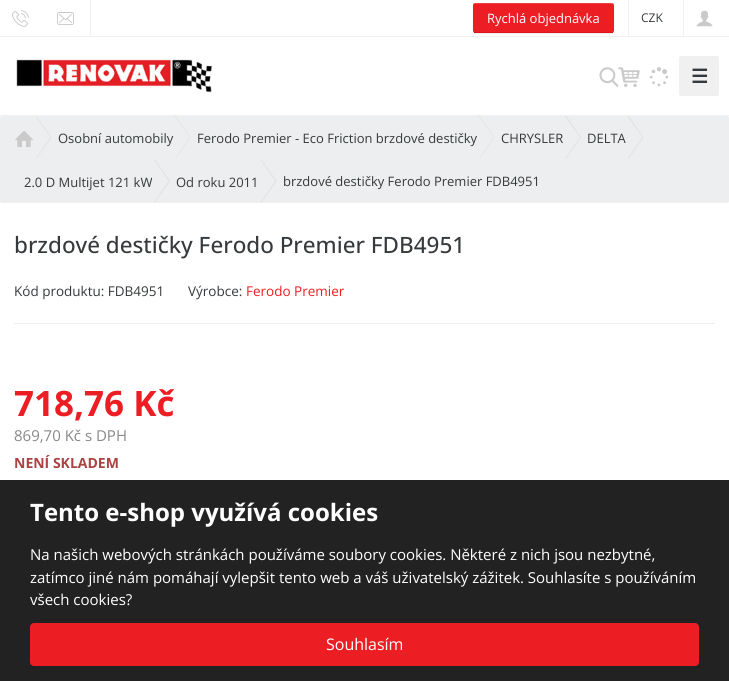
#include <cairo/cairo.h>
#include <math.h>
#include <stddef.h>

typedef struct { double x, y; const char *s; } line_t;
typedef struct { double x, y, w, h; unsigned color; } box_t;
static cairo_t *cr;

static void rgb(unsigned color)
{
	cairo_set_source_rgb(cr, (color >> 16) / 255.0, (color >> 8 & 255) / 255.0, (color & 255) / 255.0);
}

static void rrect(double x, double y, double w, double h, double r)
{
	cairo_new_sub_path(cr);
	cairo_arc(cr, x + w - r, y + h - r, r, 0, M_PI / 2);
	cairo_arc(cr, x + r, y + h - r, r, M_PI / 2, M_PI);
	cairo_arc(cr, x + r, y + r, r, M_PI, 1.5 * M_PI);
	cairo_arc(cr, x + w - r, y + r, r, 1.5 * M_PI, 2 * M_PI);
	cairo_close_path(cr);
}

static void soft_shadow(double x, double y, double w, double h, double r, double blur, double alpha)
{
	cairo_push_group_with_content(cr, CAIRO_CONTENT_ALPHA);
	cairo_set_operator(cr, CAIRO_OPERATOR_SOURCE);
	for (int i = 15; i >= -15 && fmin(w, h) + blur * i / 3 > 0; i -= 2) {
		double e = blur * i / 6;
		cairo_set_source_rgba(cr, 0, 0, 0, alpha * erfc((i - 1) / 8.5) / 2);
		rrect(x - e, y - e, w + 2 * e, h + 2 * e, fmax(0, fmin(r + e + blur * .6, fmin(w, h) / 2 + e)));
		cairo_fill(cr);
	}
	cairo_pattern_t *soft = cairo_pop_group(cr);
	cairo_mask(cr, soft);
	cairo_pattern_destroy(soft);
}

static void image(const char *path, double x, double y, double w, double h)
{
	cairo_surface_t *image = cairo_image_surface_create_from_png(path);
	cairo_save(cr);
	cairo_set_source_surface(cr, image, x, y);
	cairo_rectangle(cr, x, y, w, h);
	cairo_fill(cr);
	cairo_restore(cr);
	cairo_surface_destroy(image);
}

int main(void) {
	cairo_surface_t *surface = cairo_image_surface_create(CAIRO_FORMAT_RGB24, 729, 681);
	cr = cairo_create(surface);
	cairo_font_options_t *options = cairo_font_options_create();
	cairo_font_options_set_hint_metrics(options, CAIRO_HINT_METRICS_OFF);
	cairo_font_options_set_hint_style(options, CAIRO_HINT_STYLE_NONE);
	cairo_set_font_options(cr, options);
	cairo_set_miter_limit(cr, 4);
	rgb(0xffffff);
	cairo_paint(cr);
	rgb(0xf0f0f0);
	cairo_rectangle(cr, 0, 36, 729, 1);
	cairo_fill(cr);
	cairo_rectangle(cr, 90, 0, 1, 36);
	cairo_fill(cr);
	image("img/1.png", 12, 10, 17, 17);
	image("img/2.png", 57, 12, 17, 13);
	rgb(0x000000);
	soft_shadow(473, 4, 141, 30, 2, 0.5, 0.07);
	rgb(0xed1d24);
	cairo_new_path(cr);
	cairo_move_to(cr, 475, 3);
	cairo_line_to(cr, 612, 3);
	cairo_curve_to(cr, 613, 3, 614, 4, 614, 5);
	cairo_line_to(cr, 614, 31);
	cairo_curve_to(cr, 614, 32, 613, 32, 612, 32);
	cairo_line_to(cr, 475, 32);
	cairo_curve_to(cr, 474, 32, 473, 32, 473, 31);
	cairo_line_to(cr, 473, 5);
	cairo_curve_to(cr, 473, 4, 474, 3, 475, 3);
	cairo_close_path(cr);
	cairo_fill(cr);
	cairo_set_source_rgba(cr, 1, 1, 1, 0.15);
	cairo_new_path(cr);
	cairo_move_to(cr, 475, 4);
	cairo_line_to(cr, 612, 4);
	cairo_curve_to(cr, 613, 4, 614, 5, 614, 6);
	cairo_line_to(cr, 614, 4);
	cairo_line_to(cr, 612, 3);
	cairo_line_to(cr, 474, 3);
	cairo_curve_to(cr, 473, 4, 473, 5, 473, 6);
	cairo_curve_to(cr, 473, 5, 474, 4, 475, 4);
	cairo_close_path(cr);
	cairo_fill(cr);
	{
		static const box_t items[] = {
			{474, 32, 139, 1, 0xdf1219},
			{628, 0, 1, 36, 0xf0f0f0},
			{683, 0, 1, 36, 0xf0f0f0},
		};
		for (size_t i = 0; i < sizeof items / sizeof *items; i++) {
			rgb(items[i].color);
			cairo_rectangle(cr, items[i].x, items[i].y, items[i].w, items[i].h);
			cairo_fill(cr);
		}
	}
	image("img/3.png", 696, 10, 17, 17);
	cairo_rectangle(cr, 0, 115, 729, 1);
	cairo_fill(cr);
	image("img/4.png", 16, 59, 196, 34);
	image("img/5.png", 599, 67, 20, 20);
	image("img/6.png", 618, 67, 22, 20);
	image("img/7.png", 649, 67, 20, 20);
	rrect(679.5, 56.5, 39, 39, 1.5);
	cairo_fill_preserve(cr);
	cairo_set_line_width(cr, 1);
	cairo_stroke(cr);
	rgb(0xeceeef);
	rrect(0, 116, 729, 87, 2);
	cairo_fill(cr);
	image("img/8.png", 15, 131, 18, 17);
	rgb(0xe3e3e3);
	cairo_new_path(cr);
	cairo_move_to(cr, 36, 117);
	cairo_line_to(cr, 36.5, 116);
	cairo_line_to(cr, 51.5, 137);
	cairo_line_to(cr, 50.5, 137.5);
	cairo_close_path(cr);
	cairo_fill(cr);
	cairo_new_path(cr);
	cairo_move_to(cr, 50.5, 137);
	cairo_line_to(cr, 51.5, 138);
	cairo_line_to(cr, 36.5, 158.5);
	cairo_line_to(cr, 36, 158);
	cairo_close_path(cr);
	cairo_fill(cr);
	cairo_new_path(cr);
	cairo_move_to(cr, 175, 116.5);
	cairo_line_to(cr, 175.5, 115.5);
	cairo_line_to(cr, 190.5, 137);
	cairo_line_to(cr, 190, 137.5);
	cairo_close_path(cr);
	cairo_fill(cr);
	cairo_new_path(cr);
	cairo_move_to(cr, 190, 137);
	cairo_line_to(cr, 190.5, 137.5);
	cairo_line_to(cr, 175.5, 159);
	cairo_line_to(cr, 175, 158.5);
	cairo_close_path(cr);
	cairo_fill(cr);
	cairo_new_path(cr);
	cairo_move_to(cr, 479, 116.5);
	cairo_line_to(cr, 479.5, 115.5);
	cairo_line_to(cr, 494.5, 137);
	cairo_line_to(cr, 494, 137.5);
	cairo_close_path(cr);
	cairo_fill(cr);
	cairo_new_path(cr);
	cairo_move_to(cr, 494, 137);
	cairo_line_to(cr, 494.5, 137.5);
	cairo_line_to(cr, 479.5, 159);
	cairo_line_to(cr, 479, 158.5);
	cairo_close_path(cr);
	cairo_fill(cr);
	cairo_new_path(cr);
	cairo_move_to(cr, 565, 116.5);
	cairo_line_to(cr, 566, 115.5);
	cairo_line_to(cr, 581, 137);
	cairo_line_to(cr, 580, 137.5);
	cairo_close_path(cr);
	cairo_fill(cr);
	cairo_new_path(cr);
	cairo_move_to(cr, 580, 137);
	cairo_line_to(cr, 581, 137.5);
	cairo_line_to(cr, 566, 159);
	cairo_line_to(cr, 565, 158.5);
	cairo_close_path(cr);
	cairo_fill(cr);
	cairo_new_path(cr);
	cairo_move_to(cr, 627.5, 116.5);
	cairo_line_to(cr, 628.5, 115.5);
	cairo_line_to(cr, 643.5, 137);
	cairo_line_to(cr, 642.5, 137.5);
	cairo_close_path(cr);
	cairo_fill(cr);
	cairo_new_path(cr);
	cairo_move_to(cr, 642.5, 137);
	cairo_line_to(cr, 643.5, 137.5);
	cairo_line_to(cr, 628.5, 159);
	cairo_line_to(cr, 627.5, 158.5);
	cairo_close_path(cr);
	cairo_fill(cr);
	cairo_new_path(cr);
	cairo_move_to(cr, 154, 160);
	cairo_line_to(cr, 155, 159.5);
	cairo_line_to(cr, 170, 180.5);
	cairo_line_to(cr, 169, 181.5);
	cairo_close_path(cr);
	cairo_fill(cr);
	cairo_new_path(cr);
	cairo_move_to(cr, 169, 180.5);
	cairo_line_to(cr, 170, 181.5);
	cairo_line_to(cr, 155, 202.5);
	cairo_line_to(cr, 154, 202);
	cairo_close_path(cr);
	cairo_fill(cr);
	cairo_new_path(cr);
	cairo_move_to(cr, 260.5, 160);
	cairo_line_to(cr, 261.5, 159.5);
	cairo_line_to(cr, 276.5, 180.5);
	cairo_line_to(cr, 275.5, 181.5);
	cairo_close_path(cr);
	cairo_fill(cr);
	cairo_new_path(cr);
	cairo_move_to(cr, 275.5, 180.5);
	cairo_line_to(cr, 276.5, 181.5);
	cairo_line_to(cr, 261.5, 202.5);
	cairo_line_to(cr, 260.5, 202);
	cairo_close_path(cr);
	cairo_fill(cr);
	rgb(0xf0f0f0);
	cairo_rectangle(cr, 14, 323, 701, 1);
	cairo_fill(cr);
	rgb(0x222222);
	cairo_rectangle(cr, 0, 480, 729, 201);
	cairo_fill(cr);
	rgb(0xed1d24);
	rrect(30, 623, 669, 43, 4);
	cairo_fill(cr);
	cairo_select_font_face(cr, "Open Sans", CAIRO_FONT_SLANT_NORMAL, CAIRO_FONT_WEIGHT_NORMAL);
	cairo_set_font_size(cr, 13);
	rgb(0xffffff);
	cairo_move_to(cr, 487, 23);
	cairo_show_text(cr, "Rychlá objednávka");
	cairo_set_font_size(cr, 12);
	rgb(0x373a3c);
	cairo_move_to(cr, 641, 22);
	cairo_show_text(cr, "CZK");
	cairo_select_font_face(cr, "DejaVu Sans", CAIRO_FONT_SLANT_NORMAL, CAIRO_FONT_WEIGHT_BOLD);
	cairo_set_font_size(cr, 19);
	cairo_move_to(cr, 691, 83);
	cairo_show_text(cr, "☰");
	cairo_select_font_face(cr, "Open Sans", CAIRO_FONT_SLANT_NORMAL, CAIRO_FONT_WEIGHT_NORMAL);
	cairo_set_font_size(cr, 13);
	{
		static const line_t items[] = {
			{58, 143, "Osobní automobily"},
			{197, 143, "Ferodo Premier - Eco Friction brzdové destičky"},
			{501, 143, "CHRYSLER"},
			{587, 143, "DELTA"},
			{24, 187, "2.0 D Multijet 121 kW"},
			{176, 187, "Od roku 2011"},
			{283, 186, "brzdové destičky Ferodo Premier FDB4951"},
		};
		for (size_t i = 0; i < sizeof items / sizeof *items; i++) {
			cairo_move_to(cr, items[i].x, items[i].y);
			cairo_show_text(cr, items[i].s);
		}
	}
	cairo_select_font_face(cr, "Open Sans Medium", CAIRO_FONT_SLANT_NORMAL, CAIRO_FONT_WEIGHT_NORMAL);
	cairo_set_font_size(cr, 22.5);
	cairo_move_to(cr, 14, 253);
	cairo_show_text(cr, "brzdové destičky Ferodo Premier FDB4951");
	cairo_select_font_face(cr, "Open Sans", CAIRO_FONT_SLANT_NORMAL, CAIRO_FONT_WEIGHT_NORMAL);
	cairo_set_font_size(cr, 13.5);
	cairo_move_to(cr, 14, 296);
	cairo_show_text(cr, "Kód produktu: FDB4951");
	cairo_move_to(cr, 188, 296);
	cairo_show_text(cr, "Výrobce:");
	rgb(0xed1d24);
	cairo_move_to(cr, 246, 296);
	cairo_show_text(cr, "Ferodo Premier");
	cairo_select_font_face(cr, "Open Sans", CAIRO_FONT_SLANT_NORMAL, CAIRO_FONT_WEIGHT_BOLD);
	cairo_set_font_size(cr, 35);
	cairo_move_to(cr, 14, 416);
	cairo_show_text(cr, "718,76 Kč");
	cairo_select_font_face(cr, "Open Sans", CAIRO_FONT_SLANT_NORMAL, CAIRO_FONT_WEIGHT_NORMAL);
	cairo_set_font_size(cr, 15);
	rgb(0x888888);
	cairo_move_to(cr, 14, 441);
	cairo_show_text(cr, "869,70 Kč s DPH");
	cairo_select_font_face(cr, "Open Sans", CAIRO_FONT_SLANT_NORMAL, CAIRO_FONT_WEIGHT_BOLD);
	cairo_set_font_size(cr, 14);
	rgb(0xa94442);
	cairo_move_to(cr, 14, 468);
	cairo_show_text(cr, "NENÍ SKLADEM");
	cairo_set_font_size(cr, 24);
	rgb(0xffffff);
	cairo_move_to(cr, 30, 521);
	cairo_show_text(cr, "Tento e-shop využívá cookies");
	cairo_select_font_face(cr, "Open Sans", CAIRO_FONT_SLANT_NORMAL, CAIRO_FONT_WEIGHT_NORMAL);
	cairo_set_font_size(cr, 15);
	{
		static const line_t items[] = {
			{30, 560, "Na našich webových stránkách používáme soubory cookies. Některé z nich jsou nezbytné,"},
			{30, 583, "zatímco jiné nám pomáhají vylepšit tento web a váš uživatelský zážitek. Souhlasíte s používáním"},
			{30, 605, "všech cookies?"},
		};
		for (size_t i = 0; i < sizeof items / sizeof *items; i++) {
			cairo_move_to(cr, items[i].x, items[i].y);
			cairo_show_text(cr, items[i].s);
		}
	}
	cairo_set_font_size(cr, 16);
	cairo_move_to(cr, 326, 650);
	cairo_show_text(cr, "Souhlasím");
	cairo_surface_write_to_png(surface, "page.png");
	cairo_font_options_destroy(options);
	cairo_destroy(cr);
	cairo_surface_destroy(surface);
	return 0;
}
